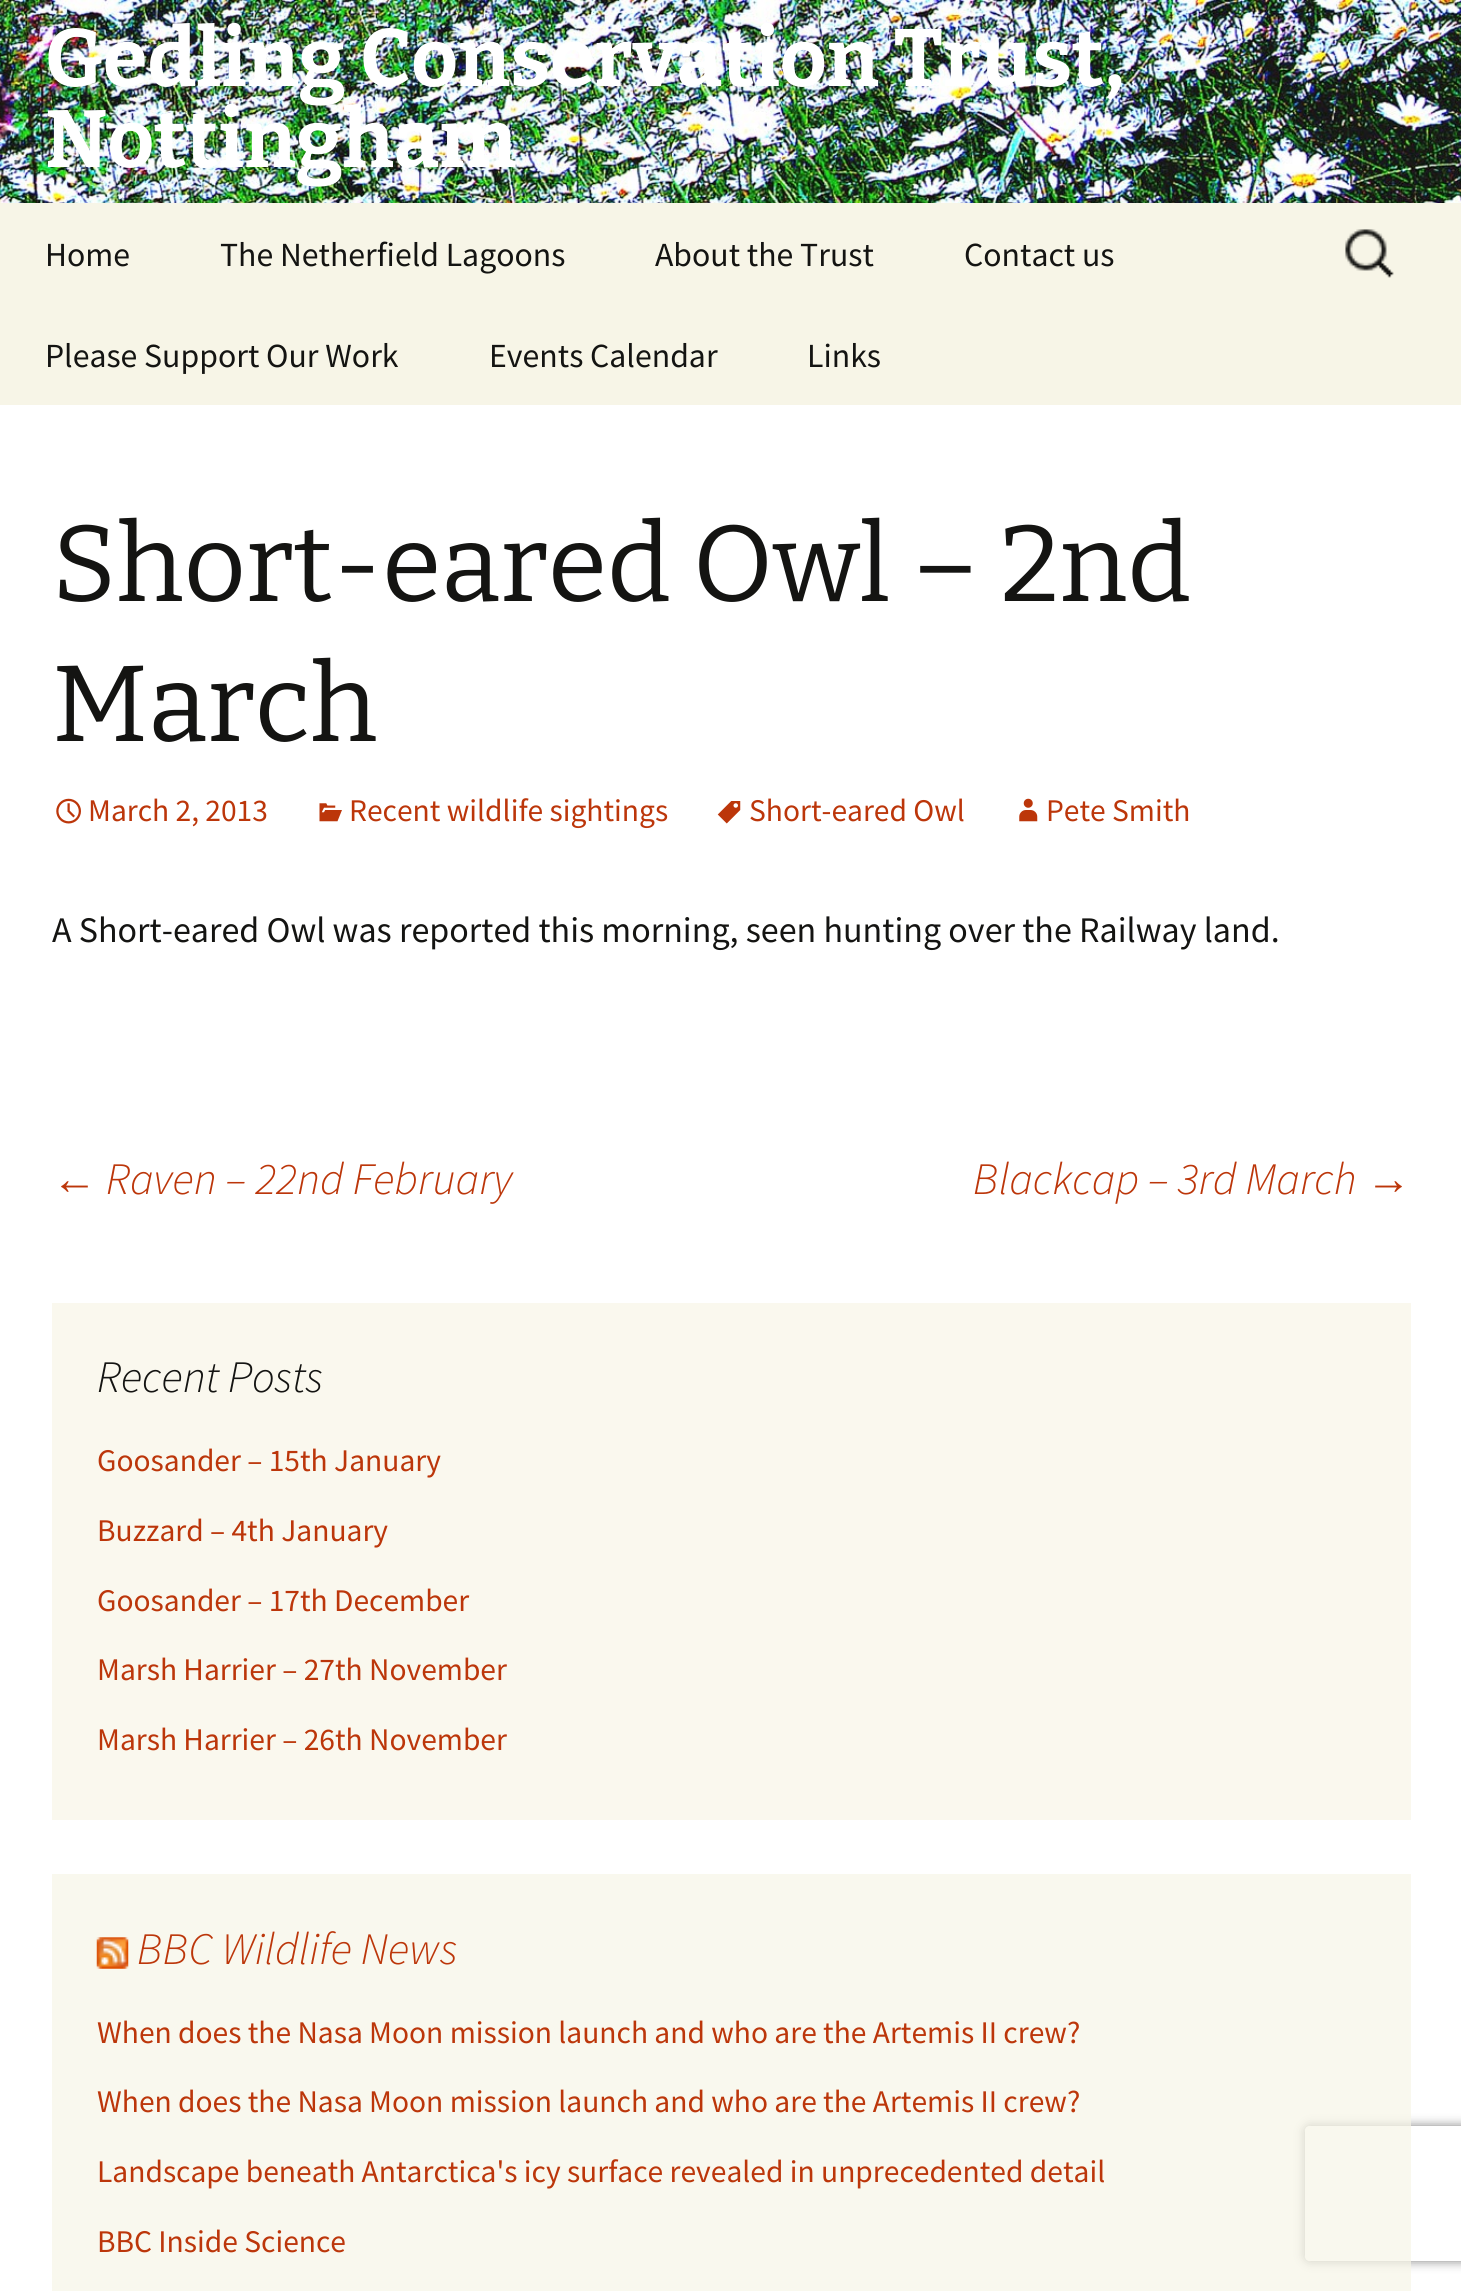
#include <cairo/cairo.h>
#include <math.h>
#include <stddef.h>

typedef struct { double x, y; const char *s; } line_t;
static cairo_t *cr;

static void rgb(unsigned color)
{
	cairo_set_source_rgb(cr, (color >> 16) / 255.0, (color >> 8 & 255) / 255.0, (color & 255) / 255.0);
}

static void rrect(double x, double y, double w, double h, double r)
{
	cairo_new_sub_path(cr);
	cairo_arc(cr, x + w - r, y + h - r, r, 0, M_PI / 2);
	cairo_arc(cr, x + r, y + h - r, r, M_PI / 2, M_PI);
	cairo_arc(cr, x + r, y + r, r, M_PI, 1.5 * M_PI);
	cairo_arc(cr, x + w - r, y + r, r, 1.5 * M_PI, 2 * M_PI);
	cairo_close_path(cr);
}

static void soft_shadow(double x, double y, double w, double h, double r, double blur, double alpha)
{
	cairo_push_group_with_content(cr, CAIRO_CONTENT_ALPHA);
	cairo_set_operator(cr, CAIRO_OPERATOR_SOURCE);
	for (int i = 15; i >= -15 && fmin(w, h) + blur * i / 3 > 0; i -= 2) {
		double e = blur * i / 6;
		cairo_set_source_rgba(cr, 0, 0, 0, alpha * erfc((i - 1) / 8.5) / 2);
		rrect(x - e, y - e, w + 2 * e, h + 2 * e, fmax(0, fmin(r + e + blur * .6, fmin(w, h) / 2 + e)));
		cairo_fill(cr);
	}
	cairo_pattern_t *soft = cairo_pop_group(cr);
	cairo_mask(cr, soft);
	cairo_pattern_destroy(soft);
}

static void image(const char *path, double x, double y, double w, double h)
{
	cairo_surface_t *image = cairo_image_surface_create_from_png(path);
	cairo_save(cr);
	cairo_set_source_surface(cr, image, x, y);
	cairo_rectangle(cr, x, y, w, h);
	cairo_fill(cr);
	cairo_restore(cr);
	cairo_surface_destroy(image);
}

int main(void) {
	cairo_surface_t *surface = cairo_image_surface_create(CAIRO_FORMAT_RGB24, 1461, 2291);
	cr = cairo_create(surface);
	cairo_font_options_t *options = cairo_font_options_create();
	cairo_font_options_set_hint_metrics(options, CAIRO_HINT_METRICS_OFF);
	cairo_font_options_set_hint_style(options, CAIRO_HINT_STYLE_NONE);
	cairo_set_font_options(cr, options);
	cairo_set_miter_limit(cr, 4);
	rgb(0xffffff);
	cairo_paint(cr);
	image("img/1.png", 0, 0, 1461, 203);
	rgb(0xf7f5e7);
	cairo_rectangle(cr, 0, 203, 1461, 202);
	cairo_fill(cr);
	image("img/2.png", 1345, 229, 49, 49);
	image("img/3.png", 56, 798, 25, 26);
	image("img/4.png", 319, 803, 23, 19);
	image("img/5.png", 717, 801, 24, 23);
	image("img/6.png", 1019, 798, 19, 24);
	rgb(0xfaf8ee);
	cairo_rectangle(cr, 52, 1303, 1359, 517);
	cairo_fill(cr);
	cairo_save(cr);
	cairo_set_fill_rule(cr, CAIRO_FILL_RULE_EVEN_ODD);
	cairo_new_path(cr);
	cairo_move_to(cr, 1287, 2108);
	cairo_line_to(cr, 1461, 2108);
	cairo_line_to(cr, 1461, 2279);
	cairo_line_to(cr, 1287, 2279);
	cairo_close_path(cr);
	cairo_move_to(cr, 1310, 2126);
	cairo_line_to(cr, 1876, 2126);
	cairo_curve_to(cr, 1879, 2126, 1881, 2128, 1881, 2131);
	cairo_line_to(cr, 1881, 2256);
	cairo_curve_to(cr, 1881, 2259, 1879, 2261, 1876, 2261);
	cairo_line_to(cr, 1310, 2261);
	cairo_curve_to(cr, 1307, 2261, 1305, 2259, 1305, 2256);
	cairo_line_to(cr, 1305, 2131);
	cairo_curve_to(cr, 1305, 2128, 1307, 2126, 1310, 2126);
	cairo_close_path(cr);
	cairo_clip(cr);
	rgb(0x808080);
	soft_shadow(1305, 2126, 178, 135, 5, 5.5, 1);
	cairo_restore(cr);
	cairo_set_source_rgba(cr, 0.969, 0.961, 0.906, 0.7);
	cairo_rectangle(cr, 52, 1874, 1359, 417);
	cairo_fill(cr);
	image("img/7.png", 96, 1937, 33, 32);
	cairo_select_font_face(cr, "Bitter Thin", CAIRO_FONT_SLANT_NORMAL, CAIRO_FONT_WEIGHT_NORMAL);
	cairo_set_font_size(cr, 81);
	rgb(0xffffff);
	cairo_move_to(cr, 45, 86);
	cairo_show_text(cr, "Gedling Conservation Trust,");
	cairo_move_to(cr, 45, 167);
	cairo_show_text(cr, "Nottingham");
	cairo_select_font_face(cr, "Source Sans Pro", CAIRO_FONT_SLANT_NORMAL, CAIRO_FONT_WEIGHT_NORMAL);
	cairo_set_font_size(cr, 33.75);
	rgb(0x141412);
	{
		static const line_t items[] = {
			{45, 266, "Home"},
			{220, 266, "The Netherfield Lagoons"},
			{655, 266, "About the Trust"},
			{964, 266, "Contact us"},
			{45, 367, "Please Support Our Work"},
			{489, 367, "Events Calendar"},
			{807, 367, "Links"},
		};
		for (size_t i = 0; i < sizeof items / sizeof *items; i++) {
			cairo_move_to(cr, items[i].x, items[i].y);
			cairo_show_text(cr, items[i].s);
		}
	}
	cairo_select_font_face(cr, "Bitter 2 Thin", CAIRO_FONT_SLANT_NORMAL, CAIRO_FONT_WEIGHT_NORMAL);
	cairo_set_font_size(cr, 108);
	cairo_move_to(cr, 52, 601);
	cairo_show_text(cr, "Short-eared Owl – 2nd");
	cairo_move_to(cr, 52, 741);
	cairo_show_text(cr, "March");
	cairo_select_font_face(cr, "Source Sans Pro", CAIRO_FONT_SLANT_NORMAL, CAIRO_FONT_WEIGHT_NORMAL);
	cairo_set_font_size(cr, 31.5);
	rgb(0xbc360a);
	{
		static const line_t items[] = {
			{88, 821, "March 2, 2013"},
			{349, 821, "Recent wildlife sightings"},
			{749, 821, "Short-eared Owl"},
			{1046, 821, "Pete Smith"},
		};
		for (size_t i = 0; i < sizeof items / sizeof *items; i++) {
			cairo_move_to(cr, items[i].x, items[i].y);
			cairo_show_text(cr, items[i].s);
		}
	}
	cairo_set_font_size(cr, 36);
	rgb(0x141412);
	cairo_move_to(cr, 52, 942);
	cairo_show_text(cr, "A Short-eared Owl was reported this morning, seen hunting over the Railway land.");
	cairo_select_font_face(cr, "Liberation Sans", CAIRO_FONT_SLANT_ITALIC, CAIRO_FONT_WEIGHT_NORMAL);
	cairo_set_font_size(cr, 45);
	rgb(0xbc360a);
	cairo_move_to(cr, 52, 1194);
	cairo_show_text(cr, "←");
	cairo_select_font_face(cr, "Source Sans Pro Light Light", CAIRO_FONT_SLANT_ITALIC, CAIRO_FONT_WEIGHT_NORMAL);
	cairo_move_to(cr, 106, 1194);
	cairo_show_text(cr, "Raven – 22nd February");
	cairo_move_to(cr, 973, 1194);
	cairo_show_text(cr, "Blackcap – 3rd March");
	cairo_select_font_face(cr, "Liberation Sans", CAIRO_FONT_SLANT_ITALIC, CAIRO_FONT_WEIGHT_NORMAL);
	cairo_move_to(cr, 1366, 1194);
	cairo_show_text(cr, "→");
	cairo_select_font_face(cr, "Source Sans Pro Light Light", CAIRO_FONT_SLANT_ITALIC, CAIRO_FONT_WEIGHT_NORMAL);
	rgb(0x141412);
	cairo_move_to(cr, 97, 1392);
	cairo_show_text(cr, "Recent Posts");
	cairo_select_font_face(cr, "Source Sans Pro", CAIRO_FONT_SLANT_NORMAL, CAIRO_FONT_WEIGHT_NORMAL);
	cairo_set_font_size(cr, 31.5);
	rgb(0xbc360a);
	{
		static const line_t items[] = {
			{97, 1471, "Goosander – 15th January"},
			{97, 1541, "Buzzard – 4th January"},
			{97, 1611, "Goosander – 17th December"},
			{97, 1680, "Marsh Harrier – 27th November"},
			{97, 1750, "Marsh Harrier – 26th November"},
		};
		for (size_t i = 0; i < sizeof items / sizeof *items; i++) {
			cairo_move_to(cr, items[i].x, items[i].y);
			cairo_show_text(cr, items[i].s);
		}
	}
	cairo_select_font_face(cr, "Source Sans Pro Light Light", CAIRO_FONT_SLANT_ITALIC, CAIRO_FONT_WEIGHT_NORMAL);
	cairo_set_font_size(cr, 45);
	cairo_move_to(cr, 137, 1964);
	cairo_show_text(cr, "BBC Wildlife News");
	cairo_select_font_face(cr, "Source Sans Pro", CAIRO_FONT_SLANT_NORMAL, CAIRO_FONT_WEIGHT_NORMAL);
	cairo_set_font_size(cr, 31.5);
	{
		static const line_t items[] = {
			{97, 2043, "When does the Nasa Moon mission launch and who are the Artemis II crew?"},
			{97, 2112, "When does the Nasa Moon mission launch and who are the Artemis II crew?"},
			{97, 2182, "Landscape beneath Antarctica's icy surface revealed in unprecedented detail"},
			{97, 2252, "BBC Inside Science"},
		};
		for (size_t i = 0; i < sizeof items / sizeof *items; i++) {
			cairo_move_to(cr, items[i].x, items[i].y);
			cairo_show_text(cr, items[i].s);
		}
	}
	cairo_surface_write_to_png(surface, "page.png");
	cairo_font_options_destroy(options);
	cairo_destroy(cr);
	cairo_surface_destroy(surface);
	return 0;
}
